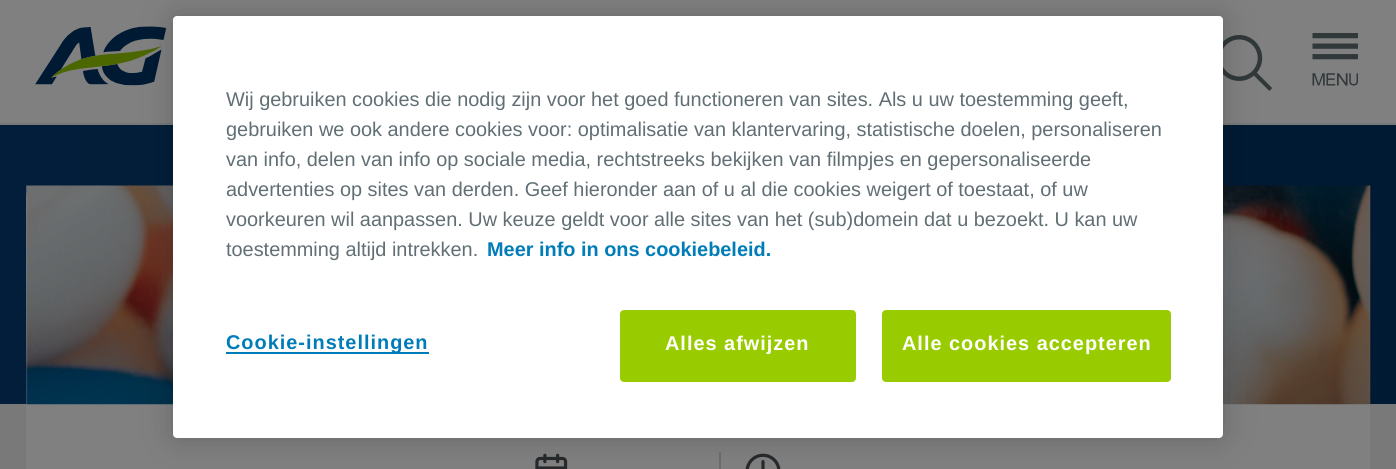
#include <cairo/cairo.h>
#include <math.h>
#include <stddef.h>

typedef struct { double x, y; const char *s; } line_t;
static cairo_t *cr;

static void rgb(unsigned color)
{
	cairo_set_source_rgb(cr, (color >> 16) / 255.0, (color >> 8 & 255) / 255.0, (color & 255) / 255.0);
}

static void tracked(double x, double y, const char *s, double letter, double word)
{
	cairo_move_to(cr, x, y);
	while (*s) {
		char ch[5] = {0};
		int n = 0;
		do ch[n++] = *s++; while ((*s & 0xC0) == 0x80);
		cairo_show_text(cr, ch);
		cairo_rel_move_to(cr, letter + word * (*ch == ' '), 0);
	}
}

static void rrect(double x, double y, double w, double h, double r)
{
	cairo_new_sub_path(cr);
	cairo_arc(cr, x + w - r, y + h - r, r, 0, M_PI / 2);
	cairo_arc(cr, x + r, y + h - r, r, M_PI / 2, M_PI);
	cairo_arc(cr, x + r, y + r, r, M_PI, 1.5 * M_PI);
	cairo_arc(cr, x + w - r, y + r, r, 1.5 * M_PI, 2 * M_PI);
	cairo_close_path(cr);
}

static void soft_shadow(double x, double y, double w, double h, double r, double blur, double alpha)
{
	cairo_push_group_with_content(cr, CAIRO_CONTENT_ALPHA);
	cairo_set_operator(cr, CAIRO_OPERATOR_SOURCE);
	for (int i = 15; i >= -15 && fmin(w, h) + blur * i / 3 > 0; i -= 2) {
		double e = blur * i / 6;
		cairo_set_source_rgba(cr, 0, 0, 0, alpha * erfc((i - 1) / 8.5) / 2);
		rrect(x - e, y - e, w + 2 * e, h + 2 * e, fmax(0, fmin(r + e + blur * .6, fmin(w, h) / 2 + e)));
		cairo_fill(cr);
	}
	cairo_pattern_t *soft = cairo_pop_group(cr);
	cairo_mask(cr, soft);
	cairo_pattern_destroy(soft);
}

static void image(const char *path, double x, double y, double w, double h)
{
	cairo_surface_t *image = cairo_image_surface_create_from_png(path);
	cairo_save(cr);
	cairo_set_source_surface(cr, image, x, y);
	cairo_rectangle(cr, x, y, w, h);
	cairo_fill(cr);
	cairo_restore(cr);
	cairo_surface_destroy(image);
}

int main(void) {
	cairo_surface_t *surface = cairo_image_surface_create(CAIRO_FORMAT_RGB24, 1396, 469);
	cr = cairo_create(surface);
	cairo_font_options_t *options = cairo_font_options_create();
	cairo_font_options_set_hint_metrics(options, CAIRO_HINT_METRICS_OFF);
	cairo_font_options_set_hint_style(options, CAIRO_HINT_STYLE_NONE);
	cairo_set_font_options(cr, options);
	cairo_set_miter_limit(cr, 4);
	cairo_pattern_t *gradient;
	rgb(0x808080);
	cairo_paint(cr);
	rgb(0x767879);
	cairo_rectangle(cr, 0, 123, 1396, 2);
	cairo_fill(cr);
	image("img/1.png", 35, 26, 131, 60);
	image("img/2.png", 1223, 35, 50, 56);
	image("img/3.png", 1312, 33, 46, 53);
	rgb(0x797979);
	cairo_rectangle(cr, 0, 404, 1396, 65);
	cairo_fill(cr);
	gradient = cairo_pattern_create_linear(0, 264, 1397, 264);
	cairo_pattern_add_color_stop_rgba(gradient, 0, 0.008, 0.118, 0.227, 1);
	cairo_pattern_add_color_stop_rgba(gradient, 1, 0, 0.102, 0.2, 1);
	cairo_set_source(cr, gradient);
	cairo_pattern_destroy(gradient);
	cairo_rectangle(cr, 0, 125, 1396, 279);
	cairo_fill(cr);
	rgb(0x808080);
	rrect(26, 186, 1344, 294, 11);
	cairo_fill(cr);
	image("img/4.png", 26, 185, 1345, 220);
	rgb(0x6c6c6c);
	cairo_rectangle(cr, 719, 452, 2, 17);
	cairo_fill(cr);
	image("img/5.png", 535, 453, 33, 16);
	image("img/6.png", 745, 453, 36, 16);
	rgb(0x000000);
	soft_shadow(173, 16, 1050, 422, 4, 16, 0.2);
	rgb(0xffffff);
	rrect(173, 16, 1050, 422, 4);
	cairo_fill(cr);
	rgb(0x007db8);
	cairo_rectangle(cr, 226, 352, 203, 2);
	cairo_fill(cr);
	rgb(0x99cc00);
	rrect(621, 311, 234, 70, 3);
	cairo_fill_preserve(cr);
	cairo_stroke(cr);
	rrect(883, 311, 287, 70, 3);
	cairo_fill_preserve(cr);
	cairo_stroke(cr);
	cairo_select_font_face(cr, "Liberation Sans", CAIRO_FONT_SLANT_NORMAL, CAIRO_FONT_WEIGHT_NORMAL);
	cairo_set_font_size(cr, 19.9);
	rgb(0x616f74);
	{
		static const line_t items[] = {
			{226, 106, "Wij gebruiken cookies die nodig zijn voor het goed functioneren van sites. Als u uw toestemming geeft,"},
			{226, 136, "gebruiken we ook andere cookies voor: optimalisatie van klantervaring, statistische doelen, personaliseren"},
			{226, 166, "van info, delen van info op sociale media, rechtstreeks bekijken van filmpjes en gepersonaliseerde"},
			{226, 196, "advertenties op sites van derden. Geef hieronder aan of u al die cookies weigert of toestaat, of uw"},
			{226, 226, "voorkeuren wil aanpassen. Uw keuze geldt voor alle sites van het (sub)domein dat u bezoekt. U kan uw"},
			{226, 256, "toestemming altijd intrekken."},
		};
		for (size_t i = 0; i < sizeof items / sizeof *items; i++) {
			cairo_move_to(cr, items[i].x, items[i].y);
			cairo_show_text(cr, items[i].s);
		}
	}
	cairo_select_font_face(cr, "Liberation Sans", CAIRO_FONT_SLANT_NORMAL, CAIRO_FONT_WEIGHT_BOLD);
	rgb(0x007db8);
	cairo_move_to(cr, 487, 256);
	cairo_show_text(cr, "Meer info in ons cookiebeleid.");
	tracked(226, 349, "Cookie-instellingen", 1, 0);
	rgb(0xffffff);
	tracked(665, 350, "Alles afwijzen", 1, 0);
	tracked(902, 350, "Alle cookies accepteren", 1, 0);
	cairo_surface_write_to_png(surface, "page.png");
	cairo_font_options_destroy(options);
	cairo_destroy(cr);
	cairo_surface_destroy(surface);
	return 0;
}
